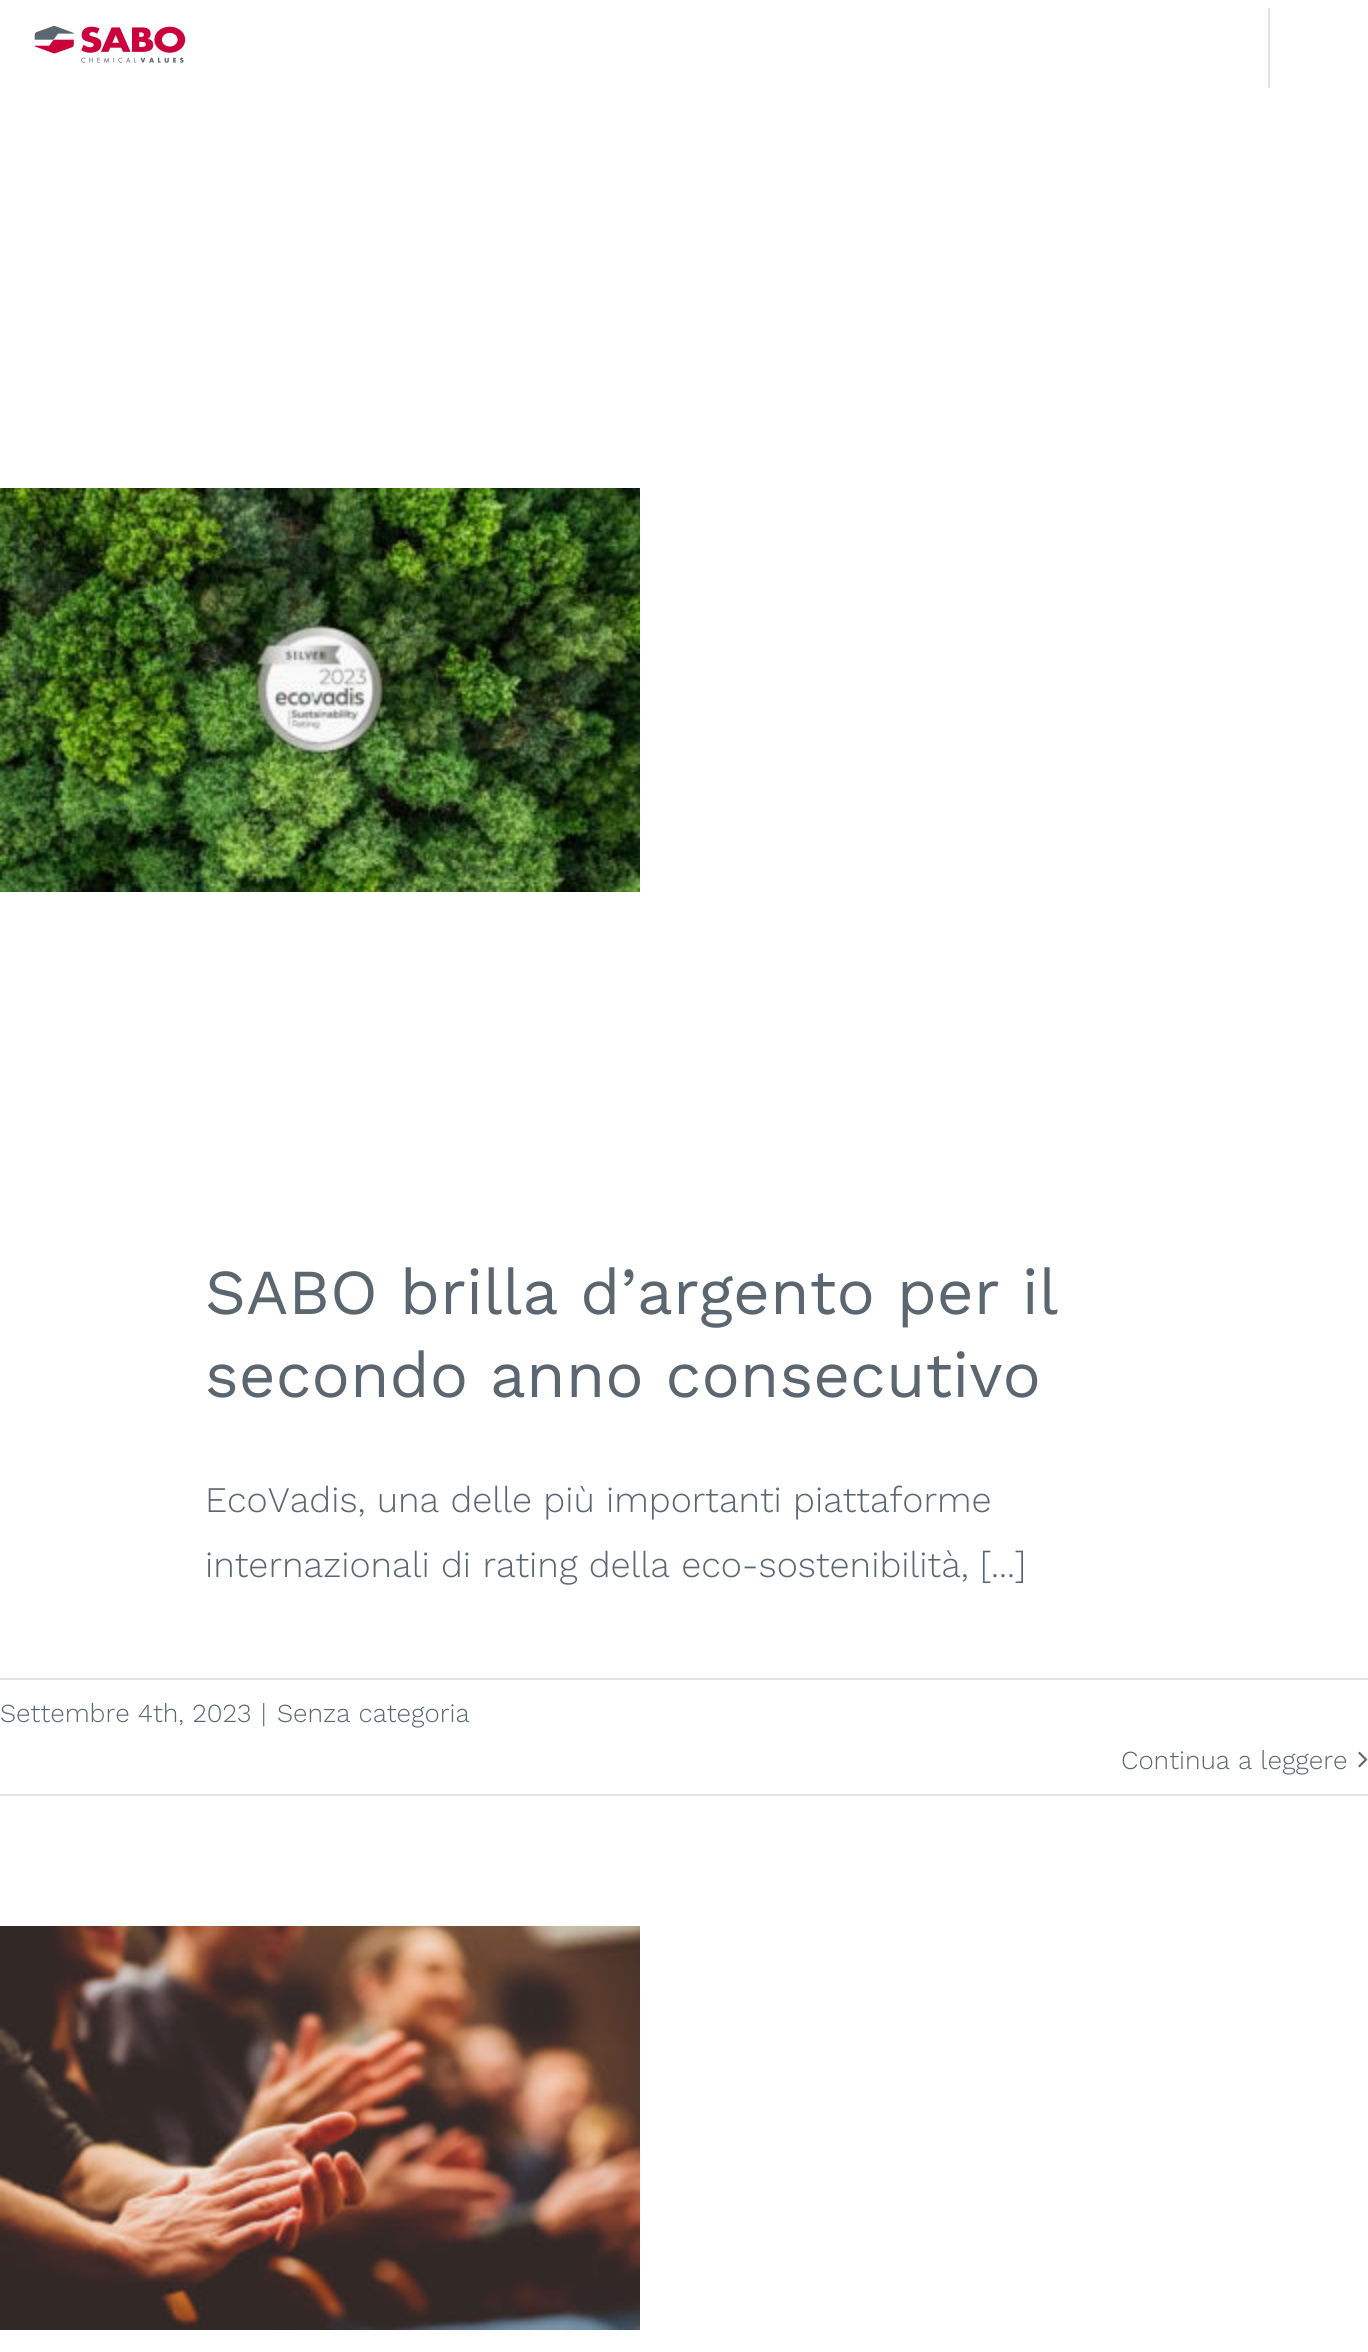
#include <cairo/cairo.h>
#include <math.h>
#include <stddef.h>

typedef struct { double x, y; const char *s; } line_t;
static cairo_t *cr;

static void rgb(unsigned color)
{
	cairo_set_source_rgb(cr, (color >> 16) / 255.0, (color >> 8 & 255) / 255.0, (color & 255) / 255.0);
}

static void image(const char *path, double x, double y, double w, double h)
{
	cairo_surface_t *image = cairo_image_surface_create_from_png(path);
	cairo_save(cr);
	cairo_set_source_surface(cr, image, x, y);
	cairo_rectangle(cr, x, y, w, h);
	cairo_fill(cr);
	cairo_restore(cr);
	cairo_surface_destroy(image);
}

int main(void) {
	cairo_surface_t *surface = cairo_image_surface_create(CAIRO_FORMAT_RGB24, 1368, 2352);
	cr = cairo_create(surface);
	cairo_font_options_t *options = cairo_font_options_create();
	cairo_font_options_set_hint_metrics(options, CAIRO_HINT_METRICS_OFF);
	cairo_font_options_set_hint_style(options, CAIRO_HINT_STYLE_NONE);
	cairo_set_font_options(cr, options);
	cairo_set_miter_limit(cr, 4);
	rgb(0xffffff);
	cairo_paint(cr);
	image("img/1.png", 34, 25, 152, 38);
	rgb(0xe2e2e2);
	cairo_rectangle(cr, 1268, 8, 2, 80);
	cairo_fill(cr);
	image("img/2.png", 0, 488, 640, 404);
	cairo_rectangle(cr, 0, 1678, 1368, 2);
	cairo_fill(cr);
	cairo_rectangle(cr, 0, 1794, 1368, 2);
	cairo_fill(cr);
	image("img/3.png", 1358, 1751, 10, 17);
	image("img/4.png", 0, 1926, 640, 404);
	cairo_select_font_face(cr, "Work Sans", CAIRO_FONT_SLANT_NORMAL, CAIRO_FONT_WEIGHT_NORMAL);
	cairo_set_font_size(cr, 64);
	rgb(0x5b6670);
	cairo_move_to(cr, 205, 1314);
	cairo_show_text(cr, "SABO brilla d’argento per il");
	cairo_move_to(cr, 205, 1397);
	cairo_show_text(cr, "secondo anno consecutivo");
	cairo_select_font_face(cr, "Work Sans Light", CAIRO_FONT_SLANT_NORMAL, CAIRO_FONT_WEIGHT_NORMAL);
	cairo_set_font_size(cr, 36);
	cairo_move_to(cr, 205, 1512);
	cairo_show_text(cr, "EcoVadis, una delle più importanti piattaforme");
	cairo_move_to(cr, 205, 1577);
	cairo_show_text(cr, "internazionali di rating della eco-sostenibilità, [...]");
	cairo_set_font_size(cr, 26);
	{
		static const line_t items[] = {
			{0, 1722, "Settembre 4th, 2023"},
			{261, 1722, "|"},
			{277, 1722, "Senza categoria"},
			{1121, 1769, "Continua a leggere"},
		};
		for (size_t i = 0; i < sizeof items / sizeof *items; i++) {
			cairo_move_to(cr, items[i].x, items[i].y);
			cairo_show_text(cr, items[i].s);
		}
	}
	cairo_surface_write_to_png(surface, "page.png");
	cairo_font_options_destroy(options);
	cairo_destroy(cr);
	cairo_surface_destroy(surface);
	return 0;
}
